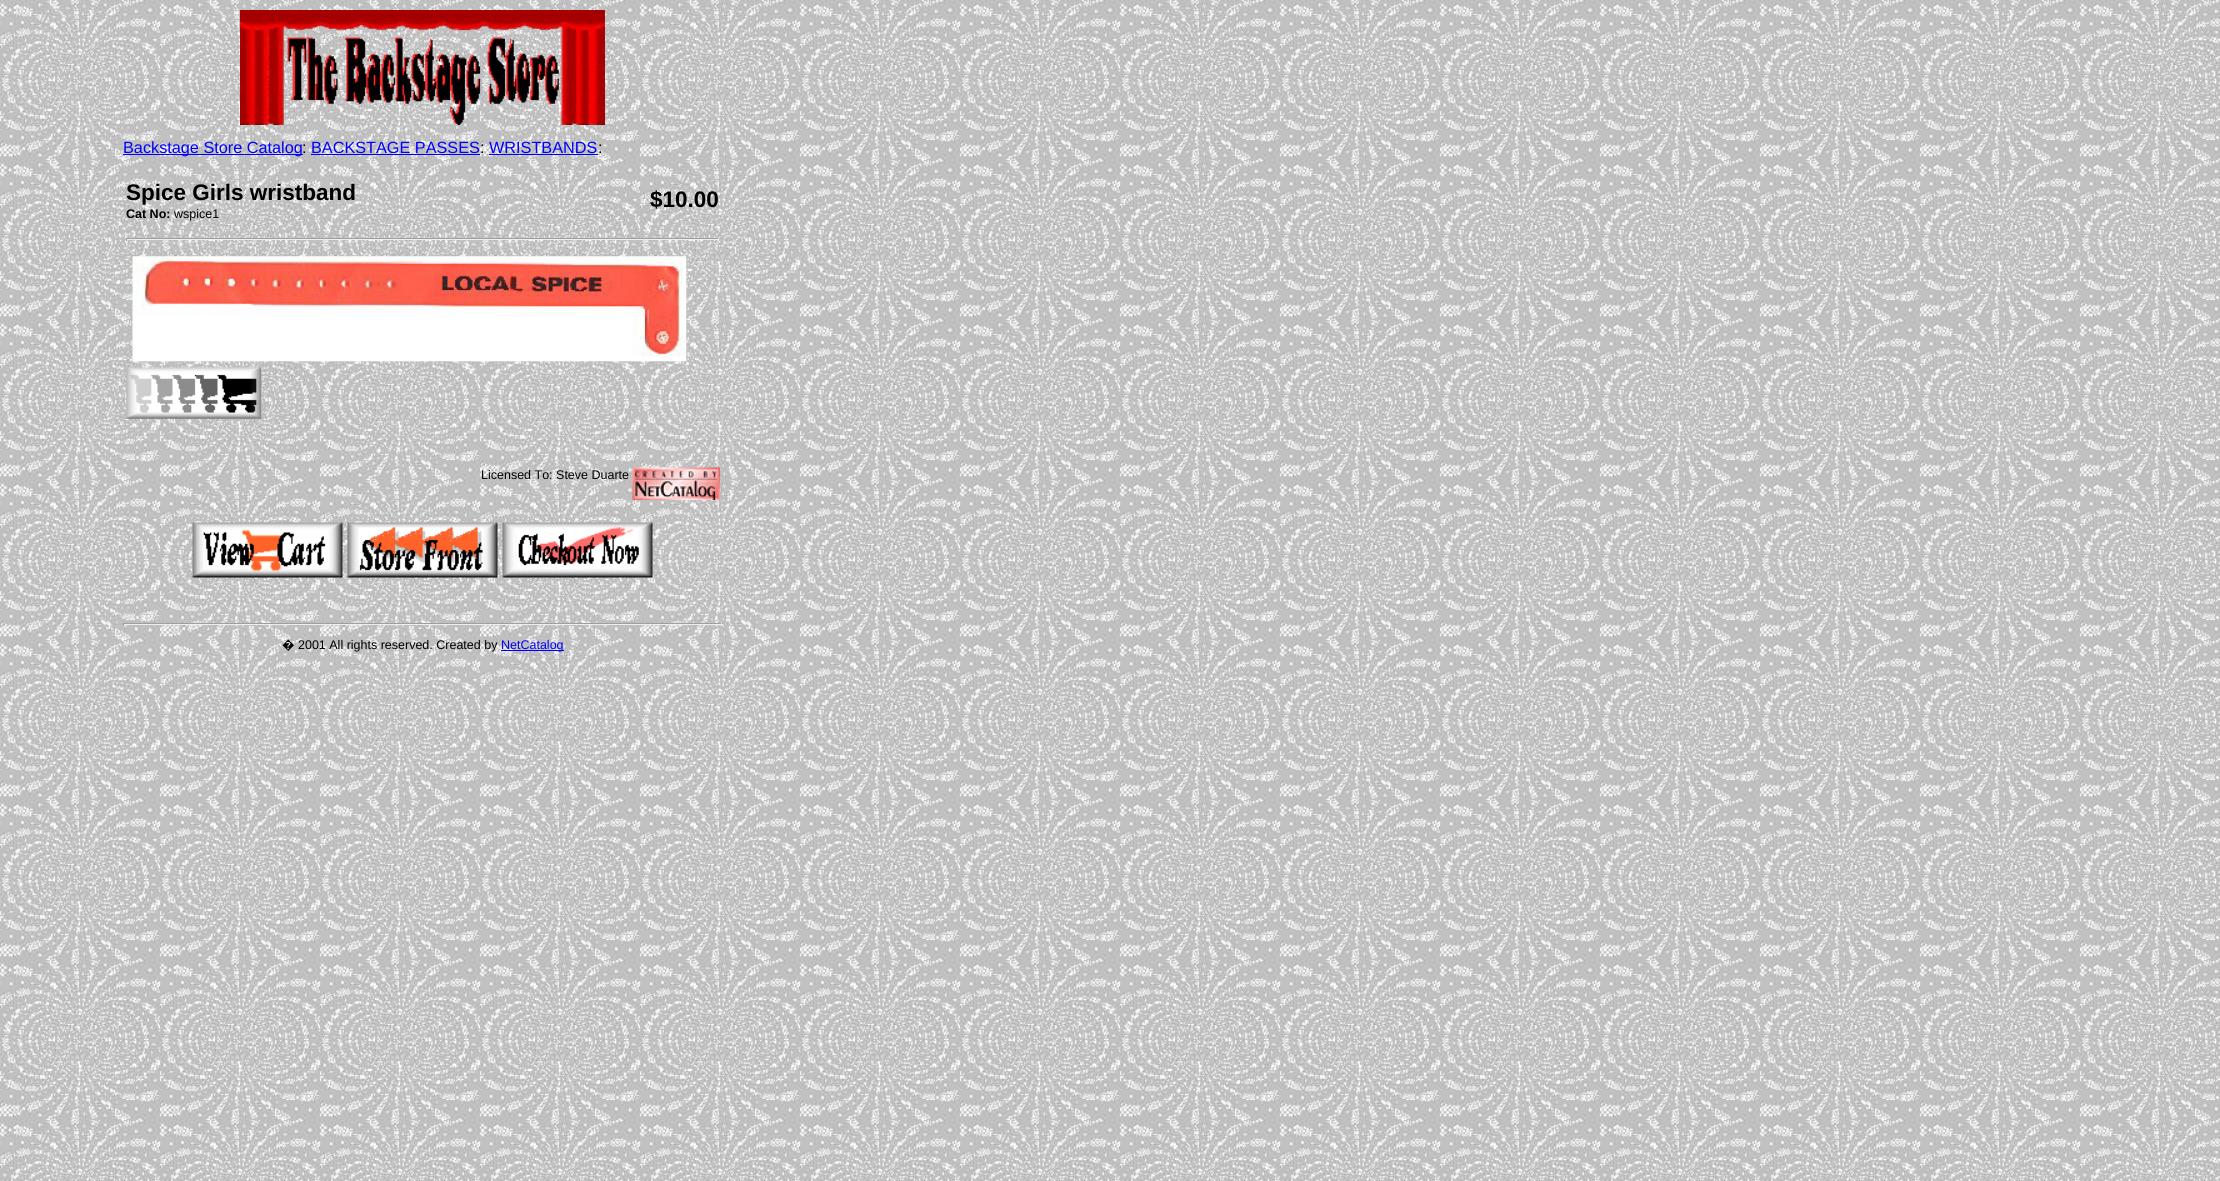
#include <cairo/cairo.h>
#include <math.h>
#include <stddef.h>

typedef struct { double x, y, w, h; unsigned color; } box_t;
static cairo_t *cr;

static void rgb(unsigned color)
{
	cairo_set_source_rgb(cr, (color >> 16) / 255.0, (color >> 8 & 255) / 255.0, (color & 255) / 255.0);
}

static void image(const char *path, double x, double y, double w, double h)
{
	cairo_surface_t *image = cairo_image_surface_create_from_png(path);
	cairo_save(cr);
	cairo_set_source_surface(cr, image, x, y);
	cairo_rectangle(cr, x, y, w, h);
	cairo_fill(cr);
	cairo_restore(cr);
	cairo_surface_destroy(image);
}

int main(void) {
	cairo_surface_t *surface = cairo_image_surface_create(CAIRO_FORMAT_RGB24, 2220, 1181);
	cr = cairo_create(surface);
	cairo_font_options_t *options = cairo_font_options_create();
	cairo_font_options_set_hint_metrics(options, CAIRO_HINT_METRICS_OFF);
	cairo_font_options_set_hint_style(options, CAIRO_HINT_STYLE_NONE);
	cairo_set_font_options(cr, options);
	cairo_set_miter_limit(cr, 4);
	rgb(0xffffff);
	cairo_paint(cr);
	image("img/1.png", 0, 0, 2220, 1181);
	image("img/2.png", 240, 10, 365, 115);
	{
		static const box_t items[] = {
			{123, 154, 180, 1, 0x0000ff},
			{311, 154, 169, 1, 0x0000ff},
			{489, 154, 109, 1, 0x0000ff},
			{126, 238, 593, 1, 0x9f9f9f},
			{718, 238, 1, 3, 0xeeeeee},
			{126, 239, 593, 1, 0xeeeeee},
			{126, 238, 1, 3, 0x9f9f9f},
		};
		for (size_t i = 0; i < sizeof items / sizeof *items; i++) {
			rgb(items[i].color);
			cairo_rectangle(cr, items[i].x, items[i].y, items[i].w, items[i].h);
			cairo_fill(cr);
		}
	}
	image("img/3.png", 132, 256, 555, 106);
	image("img/4.png", 126, 367, 136, 52);
	image("img/5.png", 632, 467, 88, 33);
	image("img/6.png", 192, 522, 151, 56);
	image("img/7.png", 347, 522, 151, 56);
	image("img/8.png", 502, 522, 151, 56);
	{
		static const box_t items[] = {
			{123, 623, 600, 1, 0x9f9f9f},
			{721, 623, 1, 3, 0xeeeeee},
			{123, 624, 600, 1, 0xeeeeee},
			{123, 623, 1, 3, 0x9f9f9f},
			{501, 650, 63, 1, 0x0000ff},
		};
		for (size_t i = 0; i < sizeof items / sizeof *items; i++) {
			rgb(items[i].color);
			cairo_rectangle(cr, items[i].x, items[i].y, items[i].w, items[i].h);
			cairo_fill(cr);
		}
	}
	cairo_select_font_face(cr, "Liberation Sans", CAIRO_FONT_SLANT_NORMAL, CAIRO_FONT_WEIGHT_NORMAL);
	cairo_set_font_size(cr, 16.25);
	cairo_move_to(cr, 123, 153);
	cairo_show_text(cr, "Backstage Store Catalog");
	rgb(0x000000);
	cairo_move_to(cr, 302, 153);
	cairo_show_text(cr, ":");
	rgb(0x0000ff);
	cairo_move_to(cr, 311, 153);
	cairo_show_text(cr, "BACKSTAGE PASSES");
	rgb(0x000000);
	cairo_move_to(cr, 480, 153);
	cairo_show_text(cr, ":");
	rgb(0x0000ff);
	cairo_move_to(cr, 489, 153);
	cairo_show_text(cr, "WRISTBANDS");
	rgb(0x000000);
	cairo_move_to(cr, 598, 153);
	cairo_show_text(cr, ":");
	cairo_select_font_face(cr, "Liberation Sans", CAIRO_FONT_SLANT_NORMAL, CAIRO_FONT_WEIGHT_BOLD);
	cairo_set_font_size(cr, 22.5);
	cairo_move_to(cr, 126, 200);
	cairo_show_text(cr, "Spice Girls wristband");
	cairo_set_font_size(cr, 12.5);
	cairo_move_to(cr, 126, 218);
	cairo_show_text(cr, "Cat No:");
	cairo_select_font_face(cr, "Liberation Sans", CAIRO_FONT_SLANT_NORMAL, CAIRO_FONT_WEIGHT_NORMAL);
	cairo_move_to(cr, 174, 218);
	cairo_show_text(cr, "wspice1");
	cairo_select_font_face(cr, "Liberation Sans", CAIRO_FONT_SLANT_NORMAL, CAIRO_FONT_WEIGHT_BOLD);
	cairo_set_font_size(cr, 22.5);
	cairo_move_to(cr, 650, 207);
	cairo_show_text(cr, "$10.00");
	cairo_select_font_face(cr, "Liberation Sans", CAIRO_FONT_SLANT_NORMAL, CAIRO_FONT_WEIGHT_NORMAL);
	cairo_set_font_size(cr, 12.5);
	cairo_move_to(cr, 481, 479);
	cairo_show_text(cr, "Licensed To: Steve Duarte");
	cairo_select_font_face(cr, "Noto Sans", CAIRO_FONT_SLANT_NORMAL, CAIRO_FONT_WEIGHT_NORMAL);
	cairo_move_to(cr, 282, 649);
	cairo_show_text(cr, "�");
	cairo_select_font_face(cr, "Liberation Sans", CAIRO_FONT_SLANT_NORMAL, CAIRO_FONT_WEIGHT_NORMAL);
	cairo_move_to(cr, 298, 649);
	cairo_show_text(cr, "2001 All rights reserved. Created by");
	rgb(0x0000ff);
	cairo_move_to(cr, 501, 649);
	cairo_show_text(cr, "NetCatalog");
	cairo_surface_write_to_png(surface, "page.png");
	cairo_font_options_destroy(options);
	cairo_destroy(cr);
	cairo_surface_destroy(surface);
	return 0;
}
